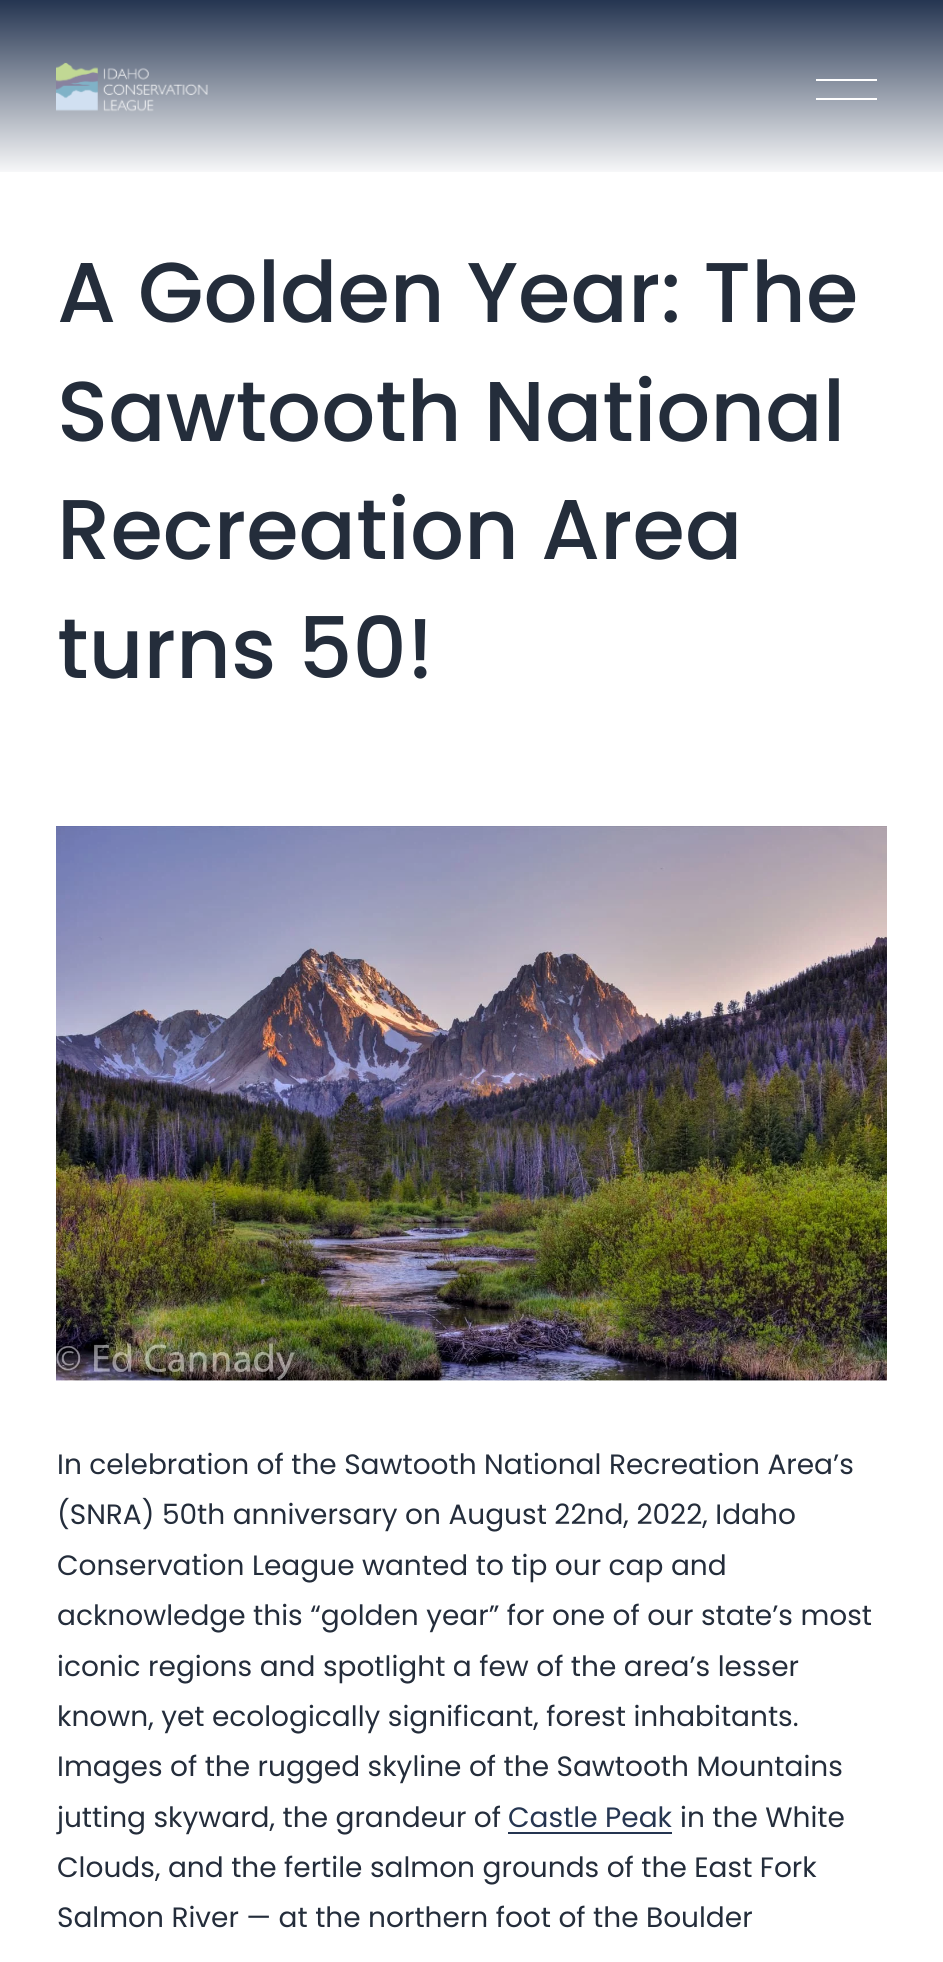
#include <cairo/cairo.h>
#include <math.h>
#include <stddef.h>

typedef struct { double x, y; const char *s; } line_t;
static cairo_t *cr;

static void rgb(unsigned color)
{
	cairo_set_source_rgb(cr, (color >> 16) / 255.0, (color >> 8 & 255) / 255.0, (color & 255) / 255.0);
}

static void image(const char *path, double x, double y, double w, double h)
{
	cairo_surface_t *image = cairo_image_surface_create_from_png(path);
	cairo_save(cr);
	cairo_set_source_surface(cr, image, x, y);
	cairo_rectangle(cr, x, y, w, h);
	cairo_fill(cr);
	cairo_restore(cr);
	cairo_surface_destroy(image);
}

int main(void) {
	cairo_surface_t *surface = cairo_image_surface_create(CAIRO_FORMAT_RGB24, 943, 1962);
	cr = cairo_create(surface);
	cairo_font_options_t *options = cairo_font_options_create();
	cairo_font_options_set_hint_metrics(options, CAIRO_HINT_METRICS_OFF);
	cairo_font_options_set_hint_style(options, CAIRO_HINT_STYLE_NONE);
	cairo_set_font_options(cr, options);
	cairo_set_miter_limit(cr, 4);
	cairo_pattern_t *gradient;
	rgb(0xffffff);
	cairo_paint(cr);
	gradient = cairo_pattern_create_linear(472, 0, 472, 179);
	cairo_pattern_add_color_stop_rgba(gradient, 0, 0.145, 0.208, 0.318, 1);
	cairo_pattern_add_color_stop_rgba(gradient, 1, 1, 1, 1, 1);
	cairo_set_source(cr, gradient);
	cairo_pattern_destroy(gradient);
	cairo_rectangle(cr, 0, 0, 943, 172);
	cairo_fill(cr);
	image("img/1.png", 56, 62, 152, 50);
	rgb(0xffffff);
	cairo_rectangle(cr, 816, 79, 61, 2);
	cairo_fill(cr);
	cairo_rectangle(cr, 816, 98, 61, 2);
	cairo_fill(cr);
	image("img/2.png", 56, 826, 831, 555);
	rgb(0x253551);
	cairo_rectangle(cr, 508, 1832, 164, 2);
	cairo_fill(cr);
	cairo_select_font_face(cr, "Poppins Medium", CAIRO_FONT_SLANT_NORMAL, CAIRO_FONT_WEIGHT_NORMAL);
	cairo_set_font_size(cr, 84.75);
	rgb(0x242d3b);
	{
		static const line_t items[] = {
			{57, 322, "A Golden Year: The"},
			{57, 441, "Sawtooth National"},
			{57, 559, "Recreation Area"},
			{57, 678, "turns 50!"},
		};
		for (size_t i = 0; i < sizeof items / sizeof *items; i++) {
			cairo_move_to(cr, items[i].x, items[i].y);
			cairo_show_text(cr, items[i].s);
		}
	}
	cairo_select_font_face(cr, "Poppins", CAIRO_FONT_SLANT_NORMAL, CAIRO_FONT_WEIGHT_NORMAL);
	cairo_set_font_size(cr, 28);
	{
		static const line_t items[] = {
			{57, 1474, "In celebration of the Sawtooth National Recreation Area’s"},
			{57, 1524, "(SNRA) 50th anniversary on August 22nd, 2022, Idaho"},
			{57, 1575, "Conservation League wanted to tip our cap and"},
			{57, 1625, "acknowledge this “golden year” for one of our state’s most"},
			{57, 1676, "iconic regions and spotlight a few of the area’s lesser"},
			{57, 1726, "known, yet ecologically significant, forest inhabitants."},
			{57, 1776, "Images of the rugged skyline of the Sawtooth Mountains"},
			{57, 1827, "jutting skyward, the grandeur of"},
		};
		for (size_t i = 0; i < sizeof items / sizeof *items; i++) {
			cairo_move_to(cr, items[i].x, items[i].y);
			cairo_show_text(cr, items[i].s);
		}
	}
	rgb(0x253551);
	cairo_move_to(cr, 508, 1827);
	cairo_show_text(cr, "Castle Peak");
	rgb(0x242d3b);
	{
		static const line_t items[] = {
			{680, 1827, "in the White"},
			{57, 1877, "Clouds, and the fertile salmon grounds of the East Fork"},
			{57, 1927, "Salmon River — at the northern foot of the Boulder"},
		};
		for (size_t i = 0; i < sizeof items / sizeof *items; i++) {
			cairo_move_to(cr, items[i].x, items[i].y);
			cairo_show_text(cr, items[i].s);
		}
	}
	cairo_surface_write_to_png(surface, "page.png");
	cairo_font_options_destroy(options);
	cairo_destroy(cr);
	cairo_surface_destroy(surface);
	return 0;
}
